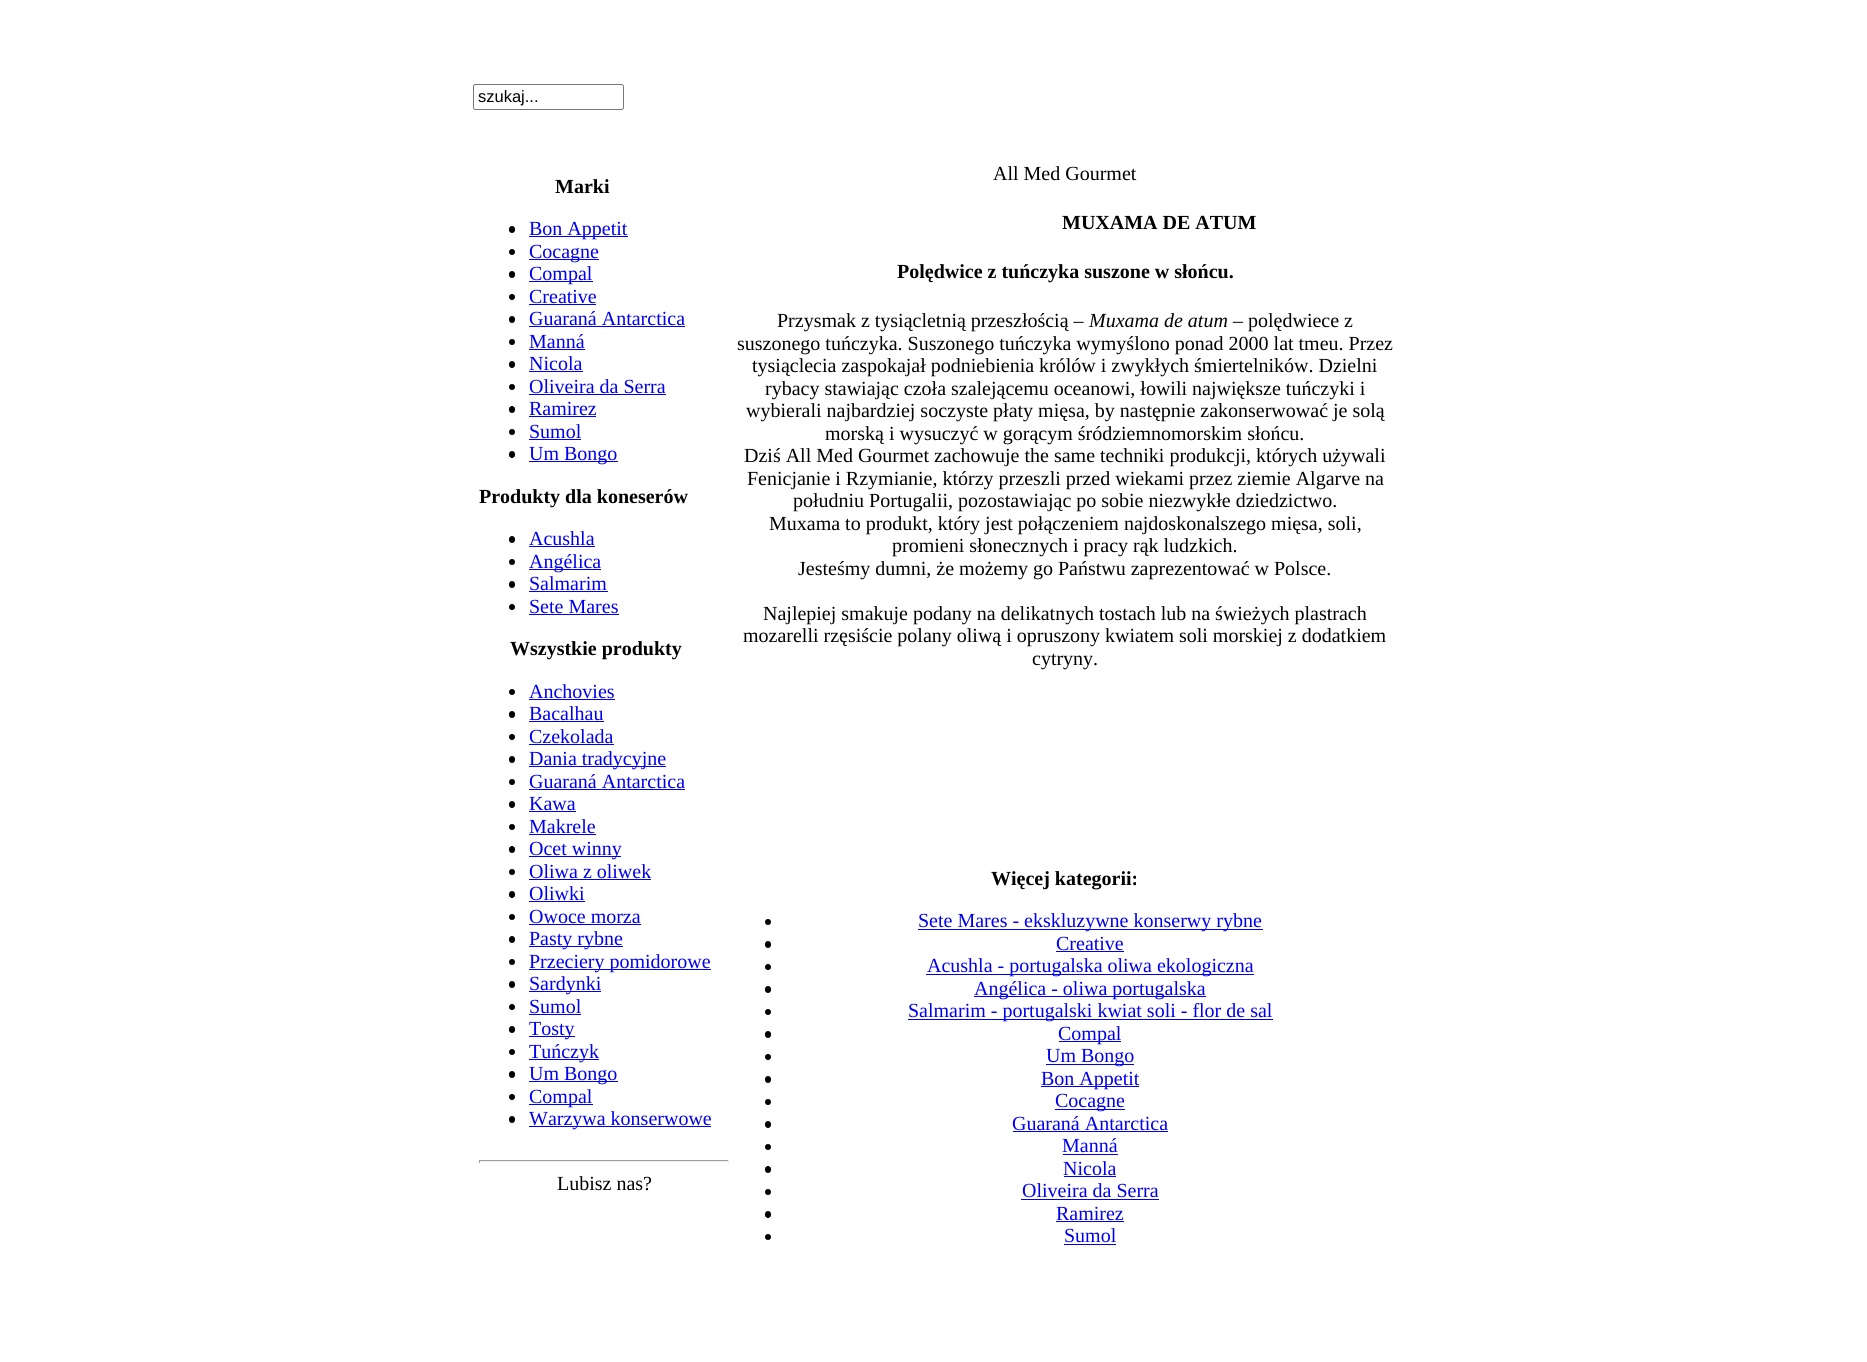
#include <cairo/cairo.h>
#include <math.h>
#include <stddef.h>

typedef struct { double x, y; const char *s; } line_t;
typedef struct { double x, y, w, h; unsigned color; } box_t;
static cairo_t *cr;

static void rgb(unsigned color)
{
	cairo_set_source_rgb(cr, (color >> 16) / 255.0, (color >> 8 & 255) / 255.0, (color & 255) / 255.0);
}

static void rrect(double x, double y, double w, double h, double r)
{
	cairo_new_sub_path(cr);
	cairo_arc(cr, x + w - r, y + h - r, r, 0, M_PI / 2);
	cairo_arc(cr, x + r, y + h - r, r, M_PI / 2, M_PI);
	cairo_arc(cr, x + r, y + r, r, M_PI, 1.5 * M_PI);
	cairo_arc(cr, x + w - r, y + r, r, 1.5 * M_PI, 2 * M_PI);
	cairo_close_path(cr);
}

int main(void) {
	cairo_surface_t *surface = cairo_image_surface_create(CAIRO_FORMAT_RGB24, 1867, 1362);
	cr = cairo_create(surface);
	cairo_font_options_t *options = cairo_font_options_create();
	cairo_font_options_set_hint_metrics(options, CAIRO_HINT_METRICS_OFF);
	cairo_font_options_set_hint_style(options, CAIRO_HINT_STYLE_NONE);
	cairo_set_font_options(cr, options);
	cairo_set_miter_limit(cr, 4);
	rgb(0xffffff);
	cairo_paint(cr);
	rrect(473.5, 84.5, 150, 25, 2);
	rgb(0x767676);
	cairo_set_line_width(cr, 1);
	cairo_stroke(cr);
	rgb(0x000000);
	rrect(509, 226, 6, 7, 3);
	cairo_fill(cr);
	rgb(0x0000ee);
	cairo_rectangle(cr, 529, 236, 99, 1);
	cairo_fill(cr);
	rgb(0x000000);
	cairo_arc(cr, 512, 252, 3, 0, 2 * M_PI);
	cairo_fill(cr);
	rgb(0x0000ee);
	cairo_rectangle(cr, 529, 259, 70, 1);
	cairo_fill(cr);
	rgb(0x000000);
	rrect(509, 271, 6, 7, 3);
	cairo_fill(cr);
	rgb(0x0000ee);
	cairo_rectangle(cr, 529, 281, 64, 1);
	cairo_fill(cr);
	rgb(0x000000);
	cairo_arc(cr, 512, 297, 3, 0, 2 * M_PI);
	cairo_fill(cr);
	rgb(0x0000ee);
	cairo_rectangle(cr, 529, 304, 67, 1);
	cairo_fill(cr);
	rgb(0x000000);
	rrect(509, 316, 6, 7, 3);
	cairo_fill(cr);
	rgb(0x0000ee);
	cairo_rectangle(cr, 529, 326, 156, 1);
	cairo_fill(cr);
	rgb(0x000000);
	cairo_arc(cr, 512, 342, 3, 0, 2 * M_PI);
	cairo_fill(cr);
	rgb(0x0000ee);
	cairo_rectangle(cr, 529, 349, 56, 1);
	cairo_fill(cr);
	rgb(0x000000);
	rrect(509, 361, 6, 7, 3);
	cairo_fill(cr);
	rgb(0x0000ee);
	cairo_rectangle(cr, 529, 371, 54, 1);
	cairo_fill(cr);
	rgb(0x000000);
	cairo_arc(cr, 512, 387, 3, 0, 2 * M_PI);
	cairo_fill(cr);
	rgb(0x0000ee);
	cairo_rectangle(cr, 529, 394, 137, 1);
	cairo_fill(cr);
	rgb(0x000000);
	rrect(509, 406, 6, 7, 3);
	cairo_fill(cr);
	rgb(0x0000ee);
	cairo_rectangle(cr, 529, 416, 67, 1);
	cairo_fill(cr);
	rgb(0x000000);
	cairo_arc(cr, 512, 432, 3, 0, 2 * M_PI);
	cairo_fill(cr);
	rgb(0x0000ee);
	cairo_rectangle(cr, 529, 439, 52, 1);
	cairo_fill(cr);
	rgb(0x000000);
	rrect(509, 451, 6, 7, 3);
	cairo_fill(cr);
	rgb(0x0000ee);
	cairo_rectangle(cr, 529, 461, 89, 1);
	cairo_fill(cr);
	rgb(0x000000);
	rrect(509, 536, 6, 7, 3);
	cairo_fill(cr);
	rgb(0x0000ee);
	cairo_rectangle(cr, 529, 546, 66, 1);
	cairo_fill(cr);
	rgb(0x000000);
	cairo_arc(cr, 512, 562, 3, 0, 2 * M_PI);
	cairo_fill(cr);
	rgb(0x0000ee);
	cairo_rectangle(cr, 529, 569, 72, 1);
	cairo_fill(cr);
	rgb(0x000000);
	rrect(509, 581, 6, 7, 3);
	cairo_fill(cr);
	rgb(0x0000ee);
	cairo_rectangle(cr, 529, 591, 79, 1);
	cairo_fill(cr);
	rgb(0x000000);
	cairo_arc(cr, 512, 607, 3, 0, 2 * M_PI);
	cairo_fill(cr);
	rgb(0x0000ee);
	cairo_rectangle(cr, 529, 614, 90, 1);
	cairo_fill(cr);
	rgb(0x000000);
	cairo_arc(cr, 512, 692, 3, 0, 2 * M_PI);
	cairo_fill(cr);
	rgb(0x0000ee);
	cairo_rectangle(cr, 529, 699, 86, 1);
	cairo_fill(cr);
	rgb(0x000000);
	rrect(509, 711, 6, 7, 3);
	cairo_fill(cr);
	rgb(0x0000ee);
	cairo_rectangle(cr, 529, 721, 75, 1);
	cairo_fill(cr);
	rgb(0x000000);
	cairo_arc(cr, 512, 737, 3, 0, 2 * M_PI);
	cairo_fill(cr);
	rgb(0x0000ee);
	cairo_rectangle(cr, 529, 744, 85, 1);
	cairo_fill(cr);
	rgb(0x000000);
	rrect(509, 756, 6, 7, 3);
	cairo_fill(cr);
	rgb(0x0000ee);
	cairo_rectangle(cr, 529, 766, 137, 1);
	cairo_fill(cr);
	rgb(0x000000);
	cairo_arc(cr, 512, 782, 3, 0, 2 * M_PI);
	cairo_fill(cr);
	rgb(0x0000ee);
	cairo_rectangle(cr, 529, 789, 156, 1);
	cairo_fill(cr);
	rgb(0x000000);
	rrect(509, 801, 6, 7, 3);
	cairo_fill(cr);
	rgb(0x0000ee);
	cairo_rectangle(cr, 529, 811, 47, 1);
	cairo_fill(cr);
	rgb(0x000000);
	cairo_arc(cr, 512, 827, 3, 0, 2 * M_PI);
	cairo_fill(cr);
	rgb(0x0000ee);
	cairo_rectangle(cr, 529, 834, 67, 1);
	cairo_fill(cr);
	rgb(0x000000);
	rrect(509, 846, 6, 7, 3);
	cairo_fill(cr);
	rgb(0x0000ee);
	cairo_rectangle(cr, 529, 856, 92, 1);
	cairo_fill(cr);
	rgb(0x000000);
	cairo_arc(cr, 512, 872, 3, 0, 2 * M_PI);
	cairo_fill(cr);
	rgb(0x0000ee);
	cairo_rectangle(cr, 529, 879, 122, 1);
	cairo_fill(cr);
	rgb(0x000000);
	rrect(509, 891, 6, 7, 3);
	cairo_fill(cr);
	rgb(0x0000ee);
	cairo_rectangle(cr, 529, 901, 56, 1);
	cairo_fill(cr);
	rgb(0x000000);
	cairo_arc(cr, 512, 917, 3, 0, 2 * M_PI);
	cairo_fill(cr);
	rgb(0x0000ee);
	cairo_rectangle(cr, 529, 924, 112, 1);
	cairo_fill(cr);
	rgb(0x000000);
	rrect(509, 936, 6, 7, 3);
	cairo_fill(cr);
	rgb(0x0000ee);
	cairo_rectangle(cr, 529, 946, 94, 1);
	cairo_fill(cr);
	rgb(0x000000);
	cairo_arc(cr, 512, 962, 3, 0, 2 * M_PI);
	cairo_fill(cr);
	rgb(0x0000ee);
	cairo_rectangle(cr, 529, 969, 182, 1);
	cairo_fill(cr);
	rgb(0x000000);
	rrect(509, 981, 6, 7, 3);
	cairo_fill(cr);
	rgb(0x0000ee);
	cairo_rectangle(cr, 529, 991, 72, 1);
	cairo_fill(cr);
	rgb(0x000000);
	cairo_arc(cr, 512, 1007, 3, 0, 2 * M_PI);
	cairo_fill(cr);
	rgb(0x0000ee);
	cairo_rectangle(cr, 529, 1014, 52, 1);
	cairo_fill(cr);
	rgb(0x000000);
	rrect(509, 1026, 6, 7, 3);
	cairo_fill(cr);
	rgb(0x0000ee);
	cairo_rectangle(cr, 529, 1036, 46, 1);
	cairo_fill(cr);
	rgb(0x000000);
	cairo_arc(cr, 512, 1052, 3, 0, 2 * M_PI);
	cairo_fill(cr);
	rgb(0x0000ee);
	cairo_rectangle(cr, 529, 1059, 70, 1);
	cairo_fill(cr);
	rgb(0x000000);
	rrect(509, 1071, 6, 7, 3);
	cairo_fill(cr);
	rgb(0x0000ee);
	cairo_rectangle(cr, 529, 1081, 89, 1);
	cairo_fill(cr);
	rgb(0x000000);
	cairo_arc(cr, 512, 1097, 3, 0, 2 * M_PI);
	cairo_fill(cr);
	rgb(0x0000ee);
	cairo_rectangle(cr, 529, 1104, 64, 1);
	cairo_fill(cr);
	rgb(0x000000);
	rrect(509, 1116, 6, 7, 3);
	cairo_fill(cr);
	{
		static const box_t items[] = {
			{529, 1126, 182, 1, 0x0000ee},
			{479, 1160, 250, 1, 0x9f9f9f},
			{728, 1160, 1, 3, 0xeeeeee},
			{479, 1161, 250, 1, 0xeeeeee},
			{479, 1160, 1, 3, 0x9f9f9f},
		};
		for (size_t i = 0; i < sizeof items / sizeof *items; i++) {
			rgb(items[i].color);
			cairo_rectangle(cr, items[i].x, items[i].y, items[i].w, items[i].h);
			cairo_fill(cr);
		}
	}
	rgb(0x000000);
	cairo_arc(cr, 768, 922, 3, 0, 2 * M_PI);
	cairo_fill(cr);
	rgb(0x0000ee);
	cairo_rectangle(cr, 918, 929, 345, 1);
	cairo_fill(cr);
	rgb(0x000000);
	rrect(765, 941, 6, 7, 3);
	cairo_fill(cr);
	rgb(0x0000ee);
	cairo_rectangle(cr, 1056, 951, 68, 1);
	cairo_fill(cr);
	rgb(0x000000);
	cairo_arc(cr, 768, 967, 3, 0, 2 * M_PI);
	cairo_fill(cr);
	rgb(0x0000ee);
	cairo_rectangle(cr, 926, 974, 328, 1);
	cairo_fill(cr);
	rgb(0x000000);
	rrect(765, 986, 6, 7, 3);
	cairo_fill(cr);
	rgb(0x0000ee);
	cairo_rectangle(cr, 974, 996, 232, 1);
	cairo_fill(cr);
	rgb(0x000000);
	cairo_arc(cr, 768, 1012, 3, 0, 2 * M_PI);
	cairo_fill(cr);
	rgb(0x0000ee);
	cairo_rectangle(cr, 908, 1019, 365, 1);
	cairo_fill(cr);
	rgb(0x000000);
	rrect(765, 1031, 6, 7, 3);
	cairo_fill(cr);
	rgb(0x0000ee);
	cairo_rectangle(cr, 1059, 1041, 62, 1);
	cairo_fill(cr);
	rgb(0x000000);
	cairo_arc(cr, 768, 1057, 3, 0, 2 * M_PI);
	cairo_fill(cr);
	rgb(0x0000ee);
	cairo_rectangle(cr, 1046, 1064, 88, 1);
	cairo_fill(cr);
	rgb(0x000000);
	rrect(765, 1076, 6, 7, 3);
	cairo_fill(cr);
	rgb(0x0000ee);
	cairo_rectangle(cr, 1041, 1086, 98, 1);
	cairo_fill(cr);
	rgb(0x000000);
	cairo_arc(cr, 768, 1102, 3, 0, 2 * M_PI);
	cairo_fill(cr);
	rgb(0x0000ee);
	cairo_rectangle(cr, 1055, 1109, 70, 1);
	cairo_fill(cr);
	rgb(0x000000);
	rrect(765, 1121, 6, 7, 3);
	cairo_fill(cr);
	rgb(0x0000ee);
	cairo_rectangle(cr, 1013, 1131, 155, 1);
	cairo_fill(cr);
	rgb(0x000000);
	cairo_arc(cr, 768, 1147, 3, 0, 2 * M_PI);
	cairo_fill(cr);
	rgb(0x0000ee);
	cairo_rectangle(cr, 1063, 1154, 55, 1);
	cairo_fill(cr);
	rgb(0x000000);
	rrect(765, 1166, 6, 7, 3);
	cairo_fill(cr);
	rgb(0x0000ee);
	cairo_rectangle(cr, 1064, 1176, 52, 1);
	cairo_fill(cr);
	rgb(0x000000);
	cairo_arc(cr, 768, 1192, 3, 0, 2 * M_PI);
	cairo_fill(cr);
	rgb(0x0000ee);
	cairo_rectangle(cr, 1021, 1199, 138, 1);
	cairo_fill(cr);
	rgb(0x000000);
	rrect(765, 1211, 6, 7, 3);
	cairo_fill(cr);
	rgb(0x0000ee);
	cairo_rectangle(cr, 1056, 1221, 68, 1);
	cairo_fill(cr);
	rgb(0x000000);
	cairo_arc(cr, 768, 1237, 3, 0, 2 * M_PI);
	cairo_fill(cr);
	rgb(0x0000ee);
	cairo_rectangle(cr, 1064, 1244, 52, 1);
	cairo_fill(cr);
	cairo_select_font_face(cr, "Liberation Sans", CAIRO_FONT_SLANT_NORMAL, CAIRO_FONT_WEIGHT_NORMAL);
	cairo_set_font_size(cr, 16.5);
	rgb(0x000000);
	cairo_move_to(cr, 478, 102);
	cairo_show_text(cr, "szukaj...");
	cairo_select_font_face(cr, "Liberation Serif", CAIRO_FONT_SLANT_NORMAL, CAIRO_FONT_WEIGHT_BOLD);
	cairo_set_font_size(cr, 20);
	cairo_move_to(cr, 555, 193);
	cairo_show_text(cr, "Marki");
	cairo_select_font_face(cr, "Liberation Serif", CAIRO_FONT_SLANT_NORMAL, CAIRO_FONT_WEIGHT_NORMAL);
	rgb(0x0000ee);
	{
		static const line_t items[] = {
			{529, 235, "Bon Appetit"},
			{529, 258, "Cocagne"},
			{529, 280, "Compal"},
			{529, 303, "Creative"},
			{529, 325, "Guaraná Antarctica"},
			{529, 348, "Manná"},
			{529, 370, "Nicola"},
			{529, 393, "Oliveira da Serra"},
			{529, 415, "Ramirez"},
			{529, 438, "Sumol"},
			{529, 460, "Um Bongo"},
		};
		for (size_t i = 0; i < sizeof items / sizeof *items; i++) {
			cairo_move_to(cr, items[i].x, items[i].y);
			cairo_show_text(cr, items[i].s);
		}
	}
	cairo_select_font_face(cr, "Liberation Serif", CAIRO_FONT_SLANT_NORMAL, CAIRO_FONT_WEIGHT_BOLD);
	rgb(0x000000);
	cairo_move_to(cr, 479, 503);
	cairo_show_text(cr, "Produkty dla koneserów");
	cairo_select_font_face(cr, "Liberation Serif", CAIRO_FONT_SLANT_NORMAL, CAIRO_FONT_WEIGHT_NORMAL);
	rgb(0x0000ee);
	{
		static const line_t items[] = {
			{529, 545, "Acushla"},
			{529, 568, "Angélica"},
			{529, 590, "Salmarim"},
			{529, 613, "Sete Mares"},
		};
		for (size_t i = 0; i < sizeof items / sizeof *items; i++) {
			cairo_move_to(cr, items[i].x, items[i].y);
			cairo_show_text(cr, items[i].s);
		}
	}
	cairo_select_font_face(cr, "Liberation Serif", CAIRO_FONT_SLANT_NORMAL, CAIRO_FONT_WEIGHT_BOLD);
	rgb(0x000000);
	cairo_move_to(cr, 510, 655);
	cairo_show_text(cr, "Wszystkie produkty");
	cairo_select_font_face(cr, "Liberation Serif", CAIRO_FONT_SLANT_NORMAL, CAIRO_FONT_WEIGHT_NORMAL);
	rgb(0x0000ee);
	{
		static const line_t items[] = {
			{529, 698, "Anchovies"},
			{529, 720, "Bacalhau"},
			{529, 743, "Czekolada"},
			{529, 765, "Dania tradycyjne"},
			{529, 788, "Guaraná Antarctica"},
			{529, 810, "Kawa"},
			{529, 833, "Makrele"},
			{529, 855, "Ocet winny"},
			{529, 878, "Oliwa z oliwek"},
			{529, 900, "Oliwki"},
			{529, 923, "Owoce morza"},
			{529, 945, "Pasty rybne"},
			{529, 968, "Przeciery pomidorowe"},
			{529, 990, "Sardynki"},
			{529, 1013, "Sumol"},
			{529, 1035, "Tosty"},
			{529, 1058, "Tuńczyk"},
			{529, 1080, "Um Bongo"},
			{529, 1103, "Compal"},
			{529, 1125, "Warzywa konserwowe"},
		};
		for (size_t i = 0; i < sizeof items / sizeof *items; i++) {
			cairo_move_to(cr, items[i].x, items[i].y);
			cairo_show_text(cr, items[i].s);
		}
	}
	rgb(0x000000);
	cairo_move_to(cr, 557, 1190);
	cairo_show_text(cr, "Lubisz nas?");
	cairo_move_to(cr, 993, 180);
	cairo_show_text(cr, "All Med Gourmet");
	cairo_select_font_face(cr, "Liberation Serif", CAIRO_FONT_SLANT_NORMAL, CAIRO_FONT_WEIGHT_BOLD);
	cairo_move_to(cr, 1062, 229);
	cairo_show_text(cr, "MUXAMA DE ATUM");
	cairo_move_to(cr, 897, 278);
	cairo_show_text(cr, "Polędwice z tuńczyka suszone w słońcu.");
	cairo_select_font_face(cr, "Liberation Serif", CAIRO_FONT_SLANT_NORMAL, CAIRO_FONT_WEIGHT_NORMAL);
	cairo_move_to(cr, 777, 327);
	cairo_show_text(cr, "Przysmak z tysiącletnią przeszłością –");
	cairo_select_font_face(cr, "Liberation Serif", CAIRO_FONT_SLANT_ITALIC, CAIRO_FONT_WEIGHT_NORMAL);
	cairo_move_to(cr, 1089, 327);
	cairo_show_text(cr, "Muxama de atum");
	cairo_select_font_face(cr, "Liberation Serif", CAIRO_FONT_SLANT_NORMAL, CAIRO_FONT_WEIGHT_NORMAL);
	{
		static const line_t items[] = {
			{1233, 327, "– polędwiece z"},
			{737, 350, "suszonego tuńczyka. Suszonego tuńczyka wymyślono ponad 2000 lat tmeu. Przez"},
			{752, 372, "tysiąclecia zaspokajał podniebienia królów i zwykłych śmiertelników. Dzielni"},
			{765, 395, "rybacy stawiając czoła szalejącemu oceanowi, łowili największe tuńczyki i"},
			{746, 417, "wybierali najbardziej soczyste płaty mięsa, by następnie zakonserwować je solą"},
			{825, 440, "morską i wysuczyć w gorącym śródziemnomorskim słońcu."},
			{744, 462, "Dziś All Med Gourmet zachowuje the same techniki produkcji, których używali"},
			{747, 485, "Fenicjanie i Rzymianie, którzy przeszli przed wiekami przez ziemie Algarve na"},
			{793, 507, "południu Portugalii, pozostawiając po sobie niezwykłe dziedzictwo."},
			{769, 530, "Muxama to produkt, który jest połączeniem najdoskonalszego mięsa, soli,"},
			{892, 552, "promieni słonecznych i pracy rąk ludzkich."},
			{798, 575, "Jesteśmy dumni, że możemy go Państwu zaprezentować w Polsce."},
			{763, 620, "Najlepiej smakuje podany na delikatnych tostach lub na świeżych plastrach"},
			{743, 642, "mozarelli rzęsiście polany oliwą i opruszony kwiatem soli morskiej z dodatkiem"},
			{1032, 665, "cytryny."},
		};
		for (size_t i = 0; i < sizeof items / sizeof *items; i++) {
			cairo_move_to(cr, items[i].x, items[i].y);
			cairo_show_text(cr, items[i].s);
		}
	}
	cairo_select_font_face(cr, "Liberation Serif", CAIRO_FONT_SLANT_NORMAL, CAIRO_FONT_WEIGHT_BOLD);
	cairo_move_to(cr, 991, 885);
	cairo_show_text(cr, "Więcej kategorii:");
	cairo_select_font_face(cr, "Liberation Serif", CAIRO_FONT_SLANT_NORMAL, CAIRO_FONT_WEIGHT_NORMAL);
	rgb(0x0000ee);
	{
		static const line_t items[] = {
			{918, 927, "Sete Mares - ekskluzywne konserwy rybne"},
			{1056, 950, "Creative"},
			{927, 972, "Acushla - portugalska oliwa ekologiczna"},
			{974, 995, "Angélica - oliwa portugalska"},
			{908, 1017, "Salmarim - portugalski kwiat soli - flor de sal"},
			{1058, 1040, "Compal"},
			{1046, 1062, "Um Bongo"},
			{1041, 1085, "Bon Appetit"},
			{1055, 1107, "Cocagne"},
			{1012, 1130, "Guaraná Antarctica"},
			{1062, 1152, "Manná"},
			{1063, 1175, "Nicola"},
			{1022, 1197, "Oliveira da Serra"},
			{1056, 1220, "Ramirez"},
			{1064, 1242, "Sumol"},
		};
		for (size_t i = 0; i < sizeof items / sizeof *items; i++) {
			cairo_move_to(cr, items[i].x, items[i].y);
			cairo_show_text(cr, items[i].s);
		}
	}
	cairo_surface_write_to_png(surface, "page.png");
	cairo_font_options_destroy(options);
	cairo_destroy(cr);
	cairo_surface_destroy(surface);
	return 0;
}
